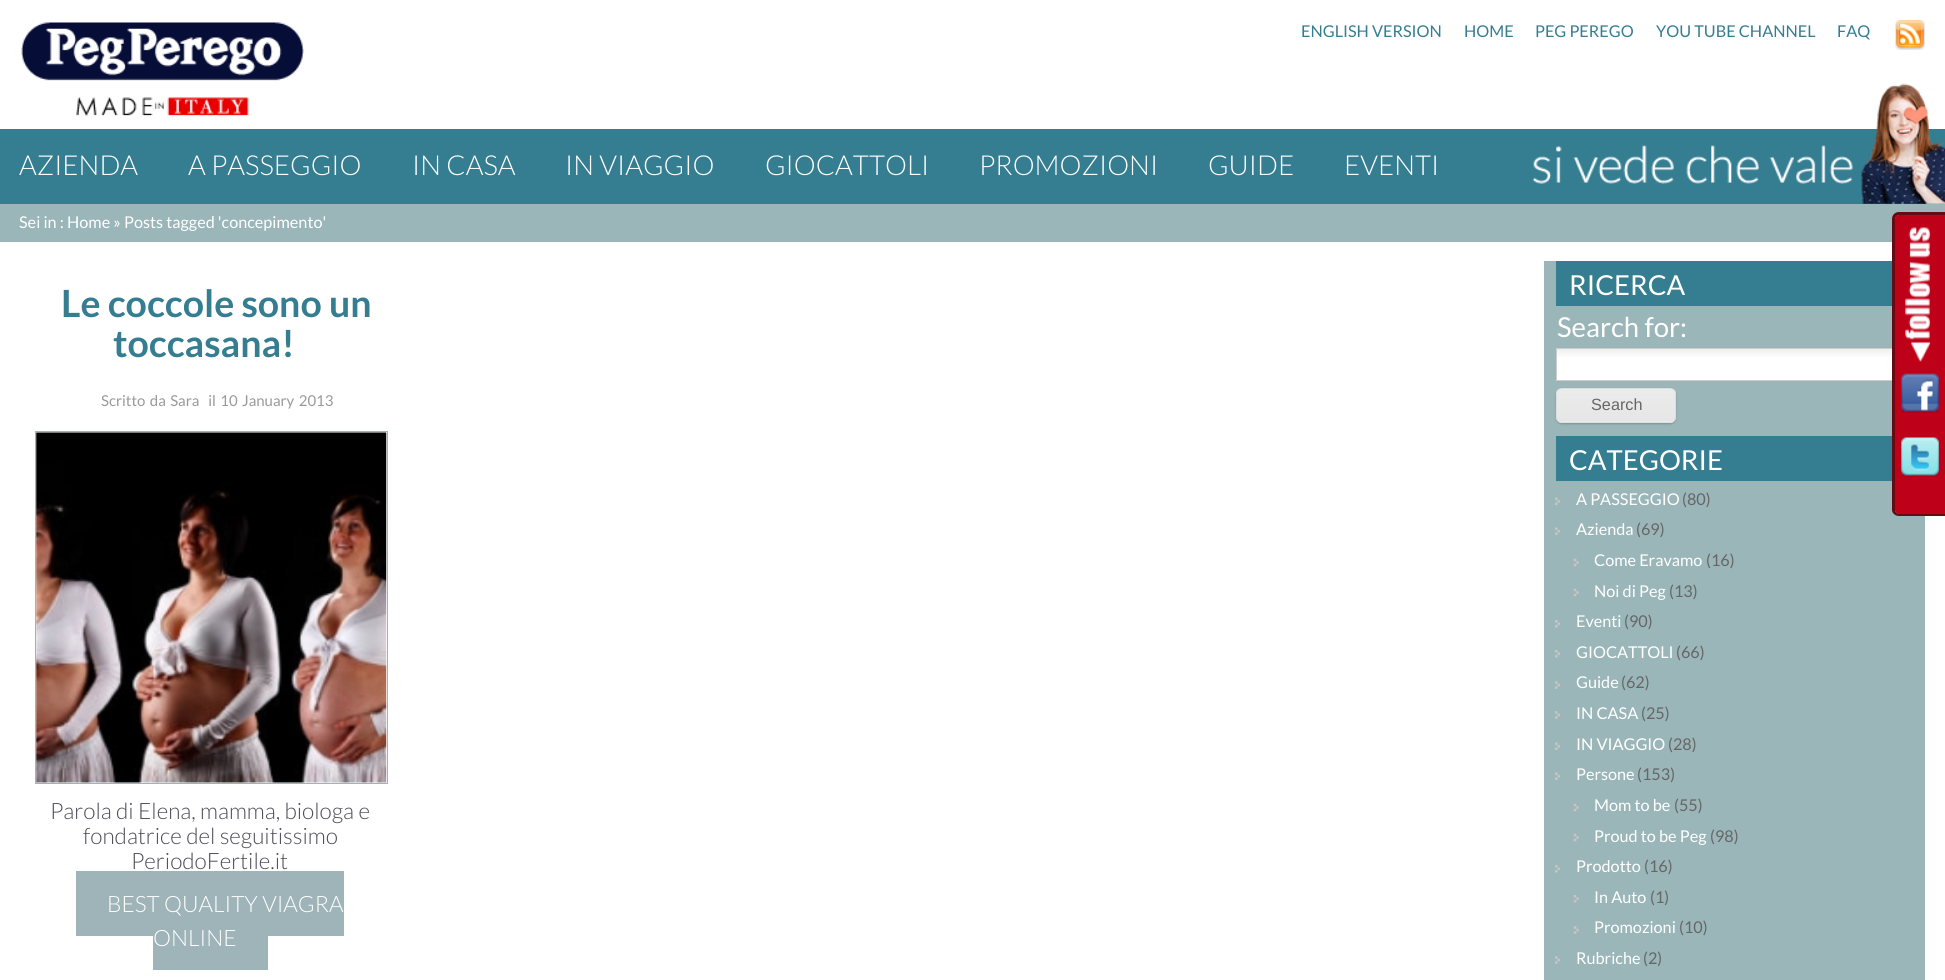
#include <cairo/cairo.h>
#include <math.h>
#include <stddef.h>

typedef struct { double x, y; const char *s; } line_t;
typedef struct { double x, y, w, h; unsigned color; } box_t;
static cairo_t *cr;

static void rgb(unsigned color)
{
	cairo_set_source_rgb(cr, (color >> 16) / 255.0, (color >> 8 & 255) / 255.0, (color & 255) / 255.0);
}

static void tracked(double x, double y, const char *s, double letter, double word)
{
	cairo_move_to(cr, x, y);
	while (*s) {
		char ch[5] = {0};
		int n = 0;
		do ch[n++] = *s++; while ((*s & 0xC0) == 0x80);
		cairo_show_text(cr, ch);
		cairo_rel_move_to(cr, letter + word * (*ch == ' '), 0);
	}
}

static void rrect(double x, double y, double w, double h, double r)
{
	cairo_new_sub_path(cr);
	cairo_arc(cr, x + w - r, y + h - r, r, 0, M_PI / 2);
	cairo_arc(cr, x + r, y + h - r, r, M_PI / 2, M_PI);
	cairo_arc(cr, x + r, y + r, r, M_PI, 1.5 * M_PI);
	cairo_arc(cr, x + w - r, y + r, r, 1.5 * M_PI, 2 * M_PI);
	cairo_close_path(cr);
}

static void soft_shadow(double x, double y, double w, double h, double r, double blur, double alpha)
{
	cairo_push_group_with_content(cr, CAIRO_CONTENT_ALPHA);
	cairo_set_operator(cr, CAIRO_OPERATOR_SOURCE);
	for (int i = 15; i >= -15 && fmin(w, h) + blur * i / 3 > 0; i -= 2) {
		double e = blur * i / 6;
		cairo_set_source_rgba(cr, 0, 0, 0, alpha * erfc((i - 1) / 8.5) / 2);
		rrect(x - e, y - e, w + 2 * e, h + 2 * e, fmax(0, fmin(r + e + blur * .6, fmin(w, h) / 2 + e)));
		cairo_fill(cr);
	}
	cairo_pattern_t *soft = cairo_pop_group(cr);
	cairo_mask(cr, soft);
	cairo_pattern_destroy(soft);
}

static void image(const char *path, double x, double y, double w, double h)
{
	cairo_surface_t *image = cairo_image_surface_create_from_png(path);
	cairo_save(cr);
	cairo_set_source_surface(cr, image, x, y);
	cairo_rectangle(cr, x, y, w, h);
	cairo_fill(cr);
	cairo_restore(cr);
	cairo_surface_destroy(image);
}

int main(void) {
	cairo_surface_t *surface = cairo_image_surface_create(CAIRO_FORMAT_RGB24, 1945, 980);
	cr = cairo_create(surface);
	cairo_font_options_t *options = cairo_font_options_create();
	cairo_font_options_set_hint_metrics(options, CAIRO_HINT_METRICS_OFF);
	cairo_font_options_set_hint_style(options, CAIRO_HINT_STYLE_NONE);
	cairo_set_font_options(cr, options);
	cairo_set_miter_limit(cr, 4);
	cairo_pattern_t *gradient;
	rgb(0xffffff);
	cairo_paint(cr);
	image("img/1.png", 21, 22, 283, 95);
	image("img/2.png", 1895, 20, 30, 30);
	rgb(0x357d91);
	cairo_rectangle(cr, 0, 129, 1945, 75);
	cairo_fill(cr);
	image("img/3.png", 1532, 83, 413, 121);
	rgb(0x9ab6b9);
	cairo_rectangle(cr, 0, 241, 1892, 1);
	cairo_fill(cr);
	cairo_rectangle(cr, 0, 204, 1945, 37);
	cairo_fill(cr);
	cairo_rectangle(cr, 35.5, 431.5, 352, 352);
	rgb(0x9fb4b8);
	cairo_set_line_width(cr, 1);
	cairo_stroke(cr);
	image("img/4.png", 36, 432, 351, 351);
	{
		static const box_t items[] = {
			{76, 871, 268, 65, 0x9fb4b8},
			{153, 936, 115, 34, 0x9fb4b8},
			{1544, 261, 381, 719, 0x9ab6b9},
			{1556, 261, 336, 45, 0x357d91},
			{1557, 349, 335, 31, 0xffffff},
		};
		for (size_t i = 0; i < sizeof items / sizeof *items; i++) {
			rgb(items[i].color);
			cairo_rectangle(cr, items[i].x, items[i].y, items[i].w, items[i].h);
			cairo_fill(cr);
		}
	}
	image("img/5.png", 1557, 349, 335, 8);
	cairo_rectangle(cr, 1556.5, 348.5, 336, 32);
	rgb(0xcccccc);
	cairo_stroke(cr);
	rgb(0x000000);
	soft_shadow(1556, 389, 120, 35, 6, 1, 0.2);
	cairo_save(cr);
	rrect(1556, 388, 120, 35, 6);
	cairo_clip(cr);
	gradient = cairo_pattern_create_linear(1558, 389, 1558, 421);
	cairo_pattern_add_color_stop_rgba(gradient, 0, 0.922, 0.922, 0.922, 1);
	cairo_pattern_add_color_stop_rgba(gradient, 1, 0.902, 0.902, 0.902, 1);
	cairo_set_source(cr, gradient);
	cairo_pattern_destroy(gradient);
	cairo_rectangle(cr, 1556, 389, 120, 32);
	cairo_fill(cr);
	gradient = cairo_pattern_create_linear(1558, 421, 1558, 454);
	cairo_pattern_add_color_stop_rgba(gradient, 0, 0.922, 0.922, 0.922, 1);
	cairo_pattern_add_color_stop_rgba(gradient, 1, 0.902, 0.902, 0.902, 1);
	cairo_set_source(cr, gradient);
	cairo_pattern_destroy(gradient);
	cairo_rectangle(cr, 1556, 421, 120, 2);
	cairo_fill(cr);
	cairo_restore(cr);
	rrect(1556.5, 388.5, 119, 34, 5.5);
	rgb(0xdedede);
	cairo_stroke(cr);
	rgb(0x357d91);
	cairo_rectangle(cr, 1556, 436, 336, 45);
	cairo_fill(cr);
	image("img/6.png", 1555, 497, 5, 8);
	image("img/6.png", 1555, 527, 5, 8);
	image("img/7.png", 1573, 558, 6, 9);
	image("img/7.png", 1573, 588, 6, 9);
	image("img/8.png", 1555, 620, 5, 8);
	image("img/8.png", 1555, 650, 5, 8);
	image("img/9.png", 1555, 681, 5, 8);
	image("img/9.png", 1555, 711, 5, 8);
	image("img/6.png", 1555, 742, 5, 8);
	image("img/6.png", 1555, 772, 5, 8);
	image("img/7.png", 1573, 803, 6, 9);
	image("img/7.png", 1573, 833, 6, 9);
	image("img/8.png", 1555, 865, 5, 8);
	image("img/10.png", 1573, 895, 6, 8);
	image("img/11.png", 1573, 926, 6, 8);
	image("img/9.png", 1555, 956, 5, 8);
	rgb(0xbe0019);
	cairo_new_path(cr);
	cairo_move_to(cr, 1899, 215);
	cairo_line_to(cr, 1945, 215);
	cairo_line_to(cr, 1945, 514);
	cairo_line_to(cr, 1899, 514);
	cairo_curve_to(cr, 1897, 514, 1895, 512, 1895, 510);
	cairo_line_to(cr, 1895, 219);
	cairo_curve_to(cr, 1895, 217, 1897, 215, 1899, 215);
	cairo_close_path(cr);
	cairo_fill(cr);
	rgb(0x650b14);
	cairo_set_fill_rule(cr, CAIRO_FILL_RULE_EVEN_ODD);
	cairo_new_path(cr);
	cairo_move_to(cr, 1899, 212);
	cairo_line_to(cr, 1945, 212);
	cairo_line_to(cr, 1945, 516);
	cairo_line_to(cr, 1899, 516);
	cairo_curve_to(cr, 1895, 516, 1892, 513, 1892, 510);
	cairo_line_to(cr, 1892, 219);
	cairo_curve_to(cr, 1892, 215, 1895, 212, 1899, 212);
	cairo_close_path(cr);
	cairo_move_to(cr, 1899, 215);
	cairo_line_to(cr, 1945, 215);
	cairo_line_to(cr, 1945, 514);
	cairo_line_to(cr, 1899, 514);
	cairo_curve_to(cr, 1897, 514, 1895, 512, 1895, 510);
	cairo_line_to(cr, 1895, 219);
	cairo_curve_to(cr, 1895, 217, 1897, 215, 1899, 215);
	cairo_close_path(cr);
	cairo_fill(cr);
	image("img/12.png", 1905, 227, 25, 135);
	image("img/13.png", 1901, 373, 38, 40);
	image("img/14.png", 1901, 437, 38, 40);
	cairo_select_font_face(cr, "Lato", CAIRO_FONT_SLANT_NORMAL, CAIRO_FONT_WEIGHT_NORMAL);
	cairo_set_font_size(cr, 16.25);
	rgb(0x357d91);
	{
		static const line_t items[] = {
			{1301, 37, "ENGLISH VERSION"},
			{1464, 37, "HOME"},
			{1535, 37, "PEG PEREGO"},
			{1656, 37, "YOU TUBE CHANNEL"},
			{1837, 37, "FAQ"},
		};
		for (size_t i = 0; i < sizeof items / sizeof *items; i++) {
			cairo_move_to(cr, items[i].x, items[i].y);
			cairo_show_text(cr, items[i].s);
		}
	}
	cairo_select_font_face(cr, "Lato Light", CAIRO_FONT_SLANT_NORMAL, CAIRO_FONT_WEIGHT_NORMAL);
	cairo_set_font_size(cr, 27.5);
	rgb(0xffffff);
	{
		static const line_t items[] = {
			{19, 175, "AZIENDA"},
			{188, 175, "A PASSEGGIO"},
			{412, 175, "IN CASA"},
			{565, 175, "IN VIAGGIO"},
			{765, 175, "GIOCATTOLI"},
			{979, 175, "PROMOZIONI"},
			{1208, 175, "GUIDE"},
			{1344, 175, "EVENTI"},
		};
		for (size_t i = 0; i < sizeof items / sizeof *items; i++) {
			cairo_move_to(cr, items[i].x, items[i].y);
			cairo_show_text(cr, items[i].s);
		}
	}
	cairo_select_font_face(cr, "Lato", CAIRO_FONT_SLANT_NORMAL, CAIRO_FONT_WEIGHT_NORMAL);
	cairo_set_font_size(cr, 16.25);
	cairo_move_to(cr, 19, 228);
	cairo_show_text(cr, "Sei in : Home » Posts tagged 'concepimento'");
	cairo_select_font_face(cr, "Lato", CAIRO_FONT_SLANT_NORMAL, CAIRO_FONT_WEIGHT_BOLD);
	cairo_set_font_size(cr, 37.5);
	rgb(0x357d91);
	cairo_move_to(cr, 61, 317);
	cairo_show_text(cr, "Le coccole sono un");
	cairo_move_to(cr, 113, 357);
	cairo_show_text(cr, "toccasana!");
	cairo_select_font_face(cr, "Lato", CAIRO_FONT_SLANT_NORMAL, CAIRO_FONT_WEIGHT_NORMAL);
	cairo_set_font_size(cr, 15);
	rgb(0x999999);
	tracked(101, 406, "Scritto da Sara  il 10 January 2013", 0, 1.5);
	cairo_select_font_face(cr, "Lato Light", CAIRO_FONT_SLANT_NORMAL, CAIRO_FONT_WEIGHT_NORMAL);
	cairo_set_font_size(cr, 22.5);
	rgb(0x4c4a57);
	{
		static const line_t items[] = {
			{50, 819, "Parola di Elena, mamma, biologa e"},
			{83, 844, "fondatrice del seguitissimo"},
			{131, 869, "PeriodoFertile.it"},
		};
		for (size_t i = 0; i < sizeof items / sizeof *items; i++) {
			cairo_move_to(cr, items[i].x, items[i].y);
			cairo_show_text(cr, items[i].s);
		}
	}
	rgb(0xffffff);
	cairo_move_to(cr, 107, 912);
	cairo_show_text(cr, "BEST QUALITY VIAGRA");
	cairo_move_to(cr, 153, 946);
	cairo_show_text(cr, "ONLINE");
	cairo_select_font_face(cr, "Lato", CAIRO_FONT_SLANT_NORMAL, CAIRO_FONT_WEIGHT_NORMAL);
	cairo_set_font_size(cr, 27.5);
	cairo_move_to(cr, 1569, 295);
	cairo_show_text(cr, "RICERCA");
	cairo_move_to(cr, 1557, 337);
	cairo_show_text(cr, "Search for:");
	cairo_select_font_face(cr, "Liberation Sans", CAIRO_FONT_SLANT_NORMAL, CAIRO_FONT_WEIGHT_NORMAL);
	cairo_set_font_size(cr, 16.25);
	rgb(0x666666);
	cairo_move_to(cr, 1591, 410);
	cairo_show_text(cr, "Search");
	cairo_select_font_face(cr, "Lato", CAIRO_FONT_SLANT_NORMAL, CAIRO_FONT_WEIGHT_NORMAL);
	cairo_set_font_size(cr, 27.5);
	rgb(0xffffff);
	cairo_move_to(cr, 1569, 470);
	cairo_show_text(cr, "CATEGORIE");
	cairo_set_font_size(cr, 16.25);
	cairo_move_to(cr, 1576, 505);
	cairo_show_text(cr, "A PASSEGGIO");
	rgb(0x666666);
	cairo_move_to(cr, 1682, 505);
	cairo_show_text(cr, "(80)");
	rgb(0xffffff);
	cairo_move_to(cr, 1576, 535);
	cairo_show_text(cr, "Azienda");
	rgb(0x666666);
	cairo_move_to(cr, 1636, 535);
	cairo_show_text(cr, "(69)");
	rgb(0xffffff);
	cairo_move_to(cr, 1594, 566);
	cairo_show_text(cr, "Come Eravamo");
	rgb(0x666666);
	cairo_move_to(cr, 1706, 566);
	cairo_show_text(cr, "(16)");
	rgb(0xffffff);
	cairo_move_to(cr, 1594, 597);
	cairo_show_text(cr, "Noi di Peg");
	rgb(0x666666);
	cairo_move_to(cr, 1669, 597);
	cairo_show_text(cr, "(13)");
	rgb(0xffffff);
	cairo_move_to(cr, 1576, 627);
	cairo_show_text(cr, "Eventi");
	rgb(0x666666);
	cairo_move_to(cr, 1624, 627);
	cairo_show_text(cr, "(90)");
	rgb(0xffffff);
	cairo_move_to(cr, 1576, 658);
	cairo_show_text(cr, "GIOCATTOLI");
	rgb(0x666666);
	cairo_move_to(cr, 1676, 658);
	cairo_show_text(cr, "(66)");
	rgb(0xffffff);
	cairo_move_to(cr, 1576, 688);
	cairo_show_text(cr, "Guide");
	rgb(0x666666);
	cairo_move_to(cr, 1621, 688);
	cairo_show_text(cr, "(62)");
	rgb(0xffffff);
	cairo_move_to(cr, 1576, 719);
	cairo_show_text(cr, "IN CASA");
	rgb(0x666666);
	cairo_move_to(cr, 1641, 719);
	cairo_show_text(cr, "(25)");
	rgb(0xffffff);
	cairo_move_to(cr, 1576, 750);
	cairo_show_text(cr, "IN VIAGGIO");
	rgb(0x666666);
	cairo_move_to(cr, 1668, 750);
	cairo_show_text(cr, "(28)");
	rgb(0xffffff);
	cairo_move_to(cr, 1576, 780);
	cairo_show_text(cr, "Persone");
	rgb(0x666666);
	cairo_move_to(cr, 1637, 780);
	cairo_show_text(cr, "(153)");
	rgb(0xffffff);
	cairo_move_to(cr, 1594, 811);
	cairo_show_text(cr, "Mom to be");
	rgb(0x666666);
	cairo_move_to(cr, 1674, 811);
	cairo_show_text(cr, "(55)");
	rgb(0xffffff);
	cairo_move_to(cr, 1594, 842);
	cairo_show_text(cr, "Proud to be Peg");
	rgb(0x666666);
	cairo_move_to(cr, 1710, 842);
	cairo_show_text(cr, "(98)");
	rgb(0xffffff);
	cairo_move_to(cr, 1576, 872);
	cairo_show_text(cr, "Prodotto");
	rgb(0x666666);
	cairo_move_to(cr, 1644, 872);
	cairo_show_text(cr, "(16)");
	rgb(0xffffff);
	cairo_move_to(cr, 1594, 903);
	cairo_show_text(cr, "In Auto");
	rgb(0x666666);
	cairo_move_to(cr, 1650, 903);
	cairo_show_text(cr, "(1)");
	rgb(0xffffff);
	cairo_move_to(cr, 1594, 933);
	cairo_show_text(cr, "Promozioni");
	rgb(0x666666);
	cairo_move_to(cr, 1679, 933);
	cairo_show_text(cr, "(10)");
	rgb(0xffffff);
	cairo_move_to(cr, 1576, 964);
	cairo_show_text(cr, "Rubriche");
	rgb(0x666666);
	cairo_move_to(cr, 1643, 964);
	cairo_show_text(cr, "(2)");
	cairo_surface_write_to_png(surface, "page.png");
	cairo_font_options_destroy(options);
	cairo_destroy(cr);
	cairo_surface_destroy(surface);
	return 0;
}
